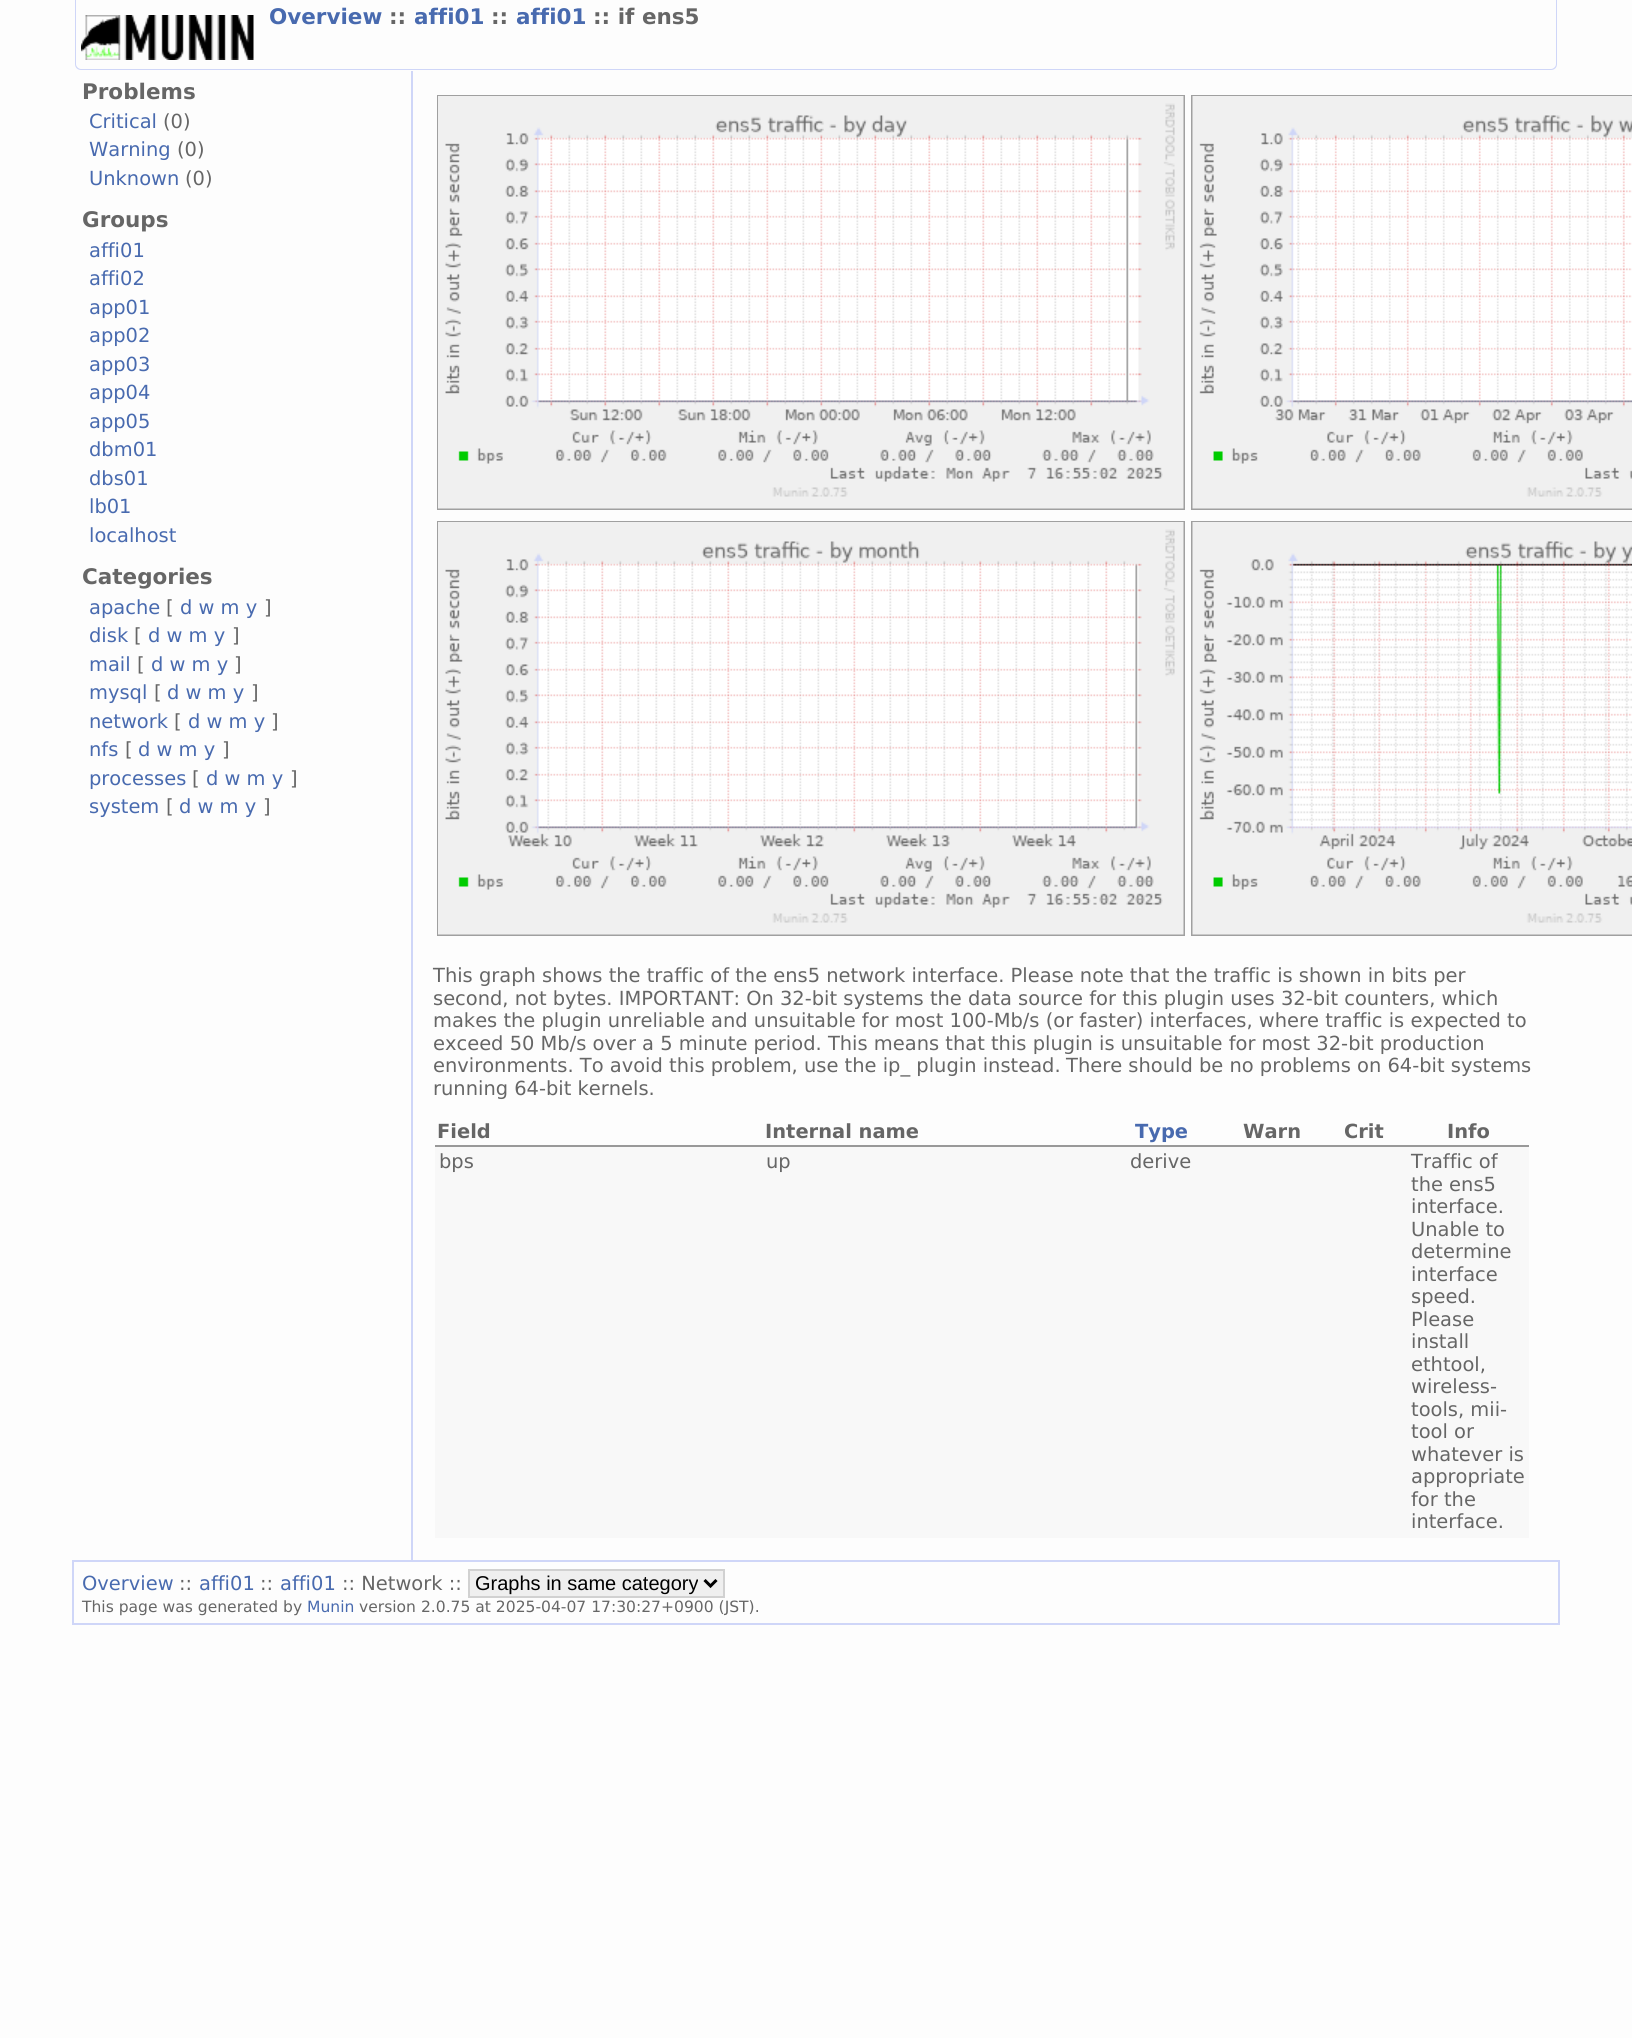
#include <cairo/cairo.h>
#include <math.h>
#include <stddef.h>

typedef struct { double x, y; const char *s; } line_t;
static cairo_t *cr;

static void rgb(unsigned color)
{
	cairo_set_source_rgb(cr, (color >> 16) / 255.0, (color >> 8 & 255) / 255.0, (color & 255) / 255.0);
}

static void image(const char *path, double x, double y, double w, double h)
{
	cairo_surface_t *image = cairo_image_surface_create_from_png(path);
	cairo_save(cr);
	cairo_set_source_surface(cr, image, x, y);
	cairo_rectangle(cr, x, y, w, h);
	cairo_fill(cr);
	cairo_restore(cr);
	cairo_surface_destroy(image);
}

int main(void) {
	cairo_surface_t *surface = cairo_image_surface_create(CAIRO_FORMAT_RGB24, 1632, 2038);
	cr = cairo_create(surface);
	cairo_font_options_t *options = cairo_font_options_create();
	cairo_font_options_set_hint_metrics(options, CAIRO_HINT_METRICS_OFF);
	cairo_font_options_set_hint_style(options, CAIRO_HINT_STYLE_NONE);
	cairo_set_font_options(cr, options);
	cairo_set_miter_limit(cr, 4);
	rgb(0xfdfdfd);
	cairo_paint(cr);
	rgb(0xcfd6f8);
	cairo_set_fill_rule(cr, CAIRO_FILL_RULE_EVEN_ODD);
	cairo_new_path(cr);
	cairo_move_to(cr, 75, 0);
	cairo_line_to(cr, 1557, 0);
	cairo_line_to(cr, 1557, 64);
	cairo_curve_to(cr, 1557, 68, 1554, 70, 1551, 70);
	cairo_line_to(cr, 81, 70);
	cairo_curve_to(cr, 78, 70, 75, 68, 75, 64);
	cairo_close_path(cr);
	cairo_move_to(cr, 76, 0);
	cairo_line_to(cr, 1556, 0);
	cairo_line_to(cr, 1556, 64);
	cairo_curve_to(cr, 1556, 67, 1553, 69, 1551, 69);
	cairo_line_to(cr, 81, 69);
	cairo_curve_to(cr, 79, 69, 76, 67, 76, 64);
	cairo_close_path(cr);
	cairo_fill(cr);
	image("img/1.png", 81, 15, 173, 45);
	cairo_rectangle(cr, 411, 71, 2, 1489);
	cairo_fill(cr);
	cairo_rectangle(cr, 438, 96, 746, 413);
	rgb(0xa0a0a0);
	cairo_stroke(cr);
	image("img/2.png", 438, 96, 746, 413);
	cairo_rectangle(cr, 1192, 96, 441, 413);
	cairo_stroke(cr);
	image("img/3.png", 1192, 96, 440, 413);
	cairo_rectangle(cr, 438, 522, 746, 413);
	cairo_stroke(cr);
	image("img/4.png", 438, 522, 746, 413);
	cairo_rectangle(cr, 1192, 522, 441, 413);
	cairo_stroke(cr);
	image("img/5.png", 1192, 522, 440, 413);
	rgb(0x999999);
	cairo_rectangle(cr, 435, 1145, 1094, 2);
	cairo_fill(cr);
	rgb(0xf8f8f8);
	cairo_rectangle(cr, 435, 1147, 1094, 391);
	cairo_fill(cr);
	cairo_rectangle(cr, 73, 1561, 1486, 63);
	rgb(0xcfd6f8);
	cairo_stroke(cr);
	rgb(0xefefef);
	cairo_rectangle(cr, 469, 1570, 255, 27);
	cairo_fill_preserve(cr);
	rgb(0xd1d1d1);
	cairo_stroke(cr);
	cairo_new_path(cr);
	cairo_move_to(cr, 704.5, 1580);
	cairo_line_to(cr, 710.5, 1586);
	cairo_line_to(cr, 716.5, 1580);
	rgb(0x000000);
	cairo_set_line_width(cr, 3);
	cairo_stroke(cr);
	cairo_select_font_face(cr, "DejaVu Sans", CAIRO_FONT_SLANT_NORMAL, CAIRO_FONT_WEIGHT_BOLD);
	cairo_set_font_size(cr, 21.5);
	rgb(0x486aaf);
	cairo_move_to(cr, 269, 24);
	cairo_show_text(cr, "Overview");
	rgb(0x666666);
	cairo_move_to(cr, 389, 24);
	cairo_show_text(cr, "::");
	rgb(0x486aaf);
	cairo_move_to(cr, 414, 24);
	cairo_show_text(cr, "affi01");
	rgb(0x666666);
	cairo_move_to(cr, 491, 24);
	cairo_show_text(cr, "::");
	rgb(0x486aaf);
	cairo_move_to(cr, 516, 24);
	cairo_show_text(cr, "affi01");
	rgb(0x666666);
	cairo_move_to(cr, 593, 24);
	cairo_show_text(cr, ":: if ens5");
	cairo_move_to(cr, 82, 99);
	cairo_show_text(cr, "Problems");
	cairo_select_font_face(cr, "DejaVu Sans", CAIRO_FONT_SLANT_NORMAL, CAIRO_FONT_WEIGHT_NORMAL);
	cairo_set_font_size(cr, 19.45);
	rgb(0x486aaf);
	cairo_move_to(cr, 89, 128);
	cairo_show_text(cr, "Critical");
	rgb(0x666666);
	cairo_move_to(cr, 163, 128);
	cairo_show_text(cr, "(0)");
	rgb(0x486aaf);
	cairo_move_to(cr, 89, 156);
	cairo_show_text(cr, "Warning");
	rgb(0x666666);
	cairo_move_to(cr, 177, 156);
	cairo_show_text(cr, "(0)");
	rgb(0x486aaf);
	cairo_move_to(cr, 89, 185);
	cairo_show_text(cr, "Unknown");
	rgb(0x666666);
	cairo_move_to(cr, 185, 185);
	cairo_show_text(cr, "(0)");
	cairo_select_font_face(cr, "DejaVu Sans", CAIRO_FONT_SLANT_NORMAL, CAIRO_FONT_WEIGHT_BOLD);
	cairo_set_font_size(cr, 21.5);
	cairo_move_to(cr, 82, 227);
	cairo_show_text(cr, "Groups");
	cairo_select_font_face(cr, "DejaVu Sans", CAIRO_FONT_SLANT_NORMAL, CAIRO_FONT_WEIGHT_NORMAL);
	cairo_set_font_size(cr, 19.45);
	rgb(0x486aaf);
	{
		static const line_t items[] = {
			{89, 257, "affi01"},
			{89, 285, "affi02"},
			{89, 314, "app01"},
			{89, 342, "app02"},
			{89, 371, "app03"},
			{89, 399, "app04"},
			{89, 428, "app05"},
			{89, 456, "dbm01"},
			{89, 485, "dbs01"},
			{89, 513, "lb01"},
			{89, 542, "localhost"},
		};
		for (size_t i = 0; i < sizeof items / sizeof *items; i++) {
			cairo_move_to(cr, items[i].x, items[i].y);
			cairo_show_text(cr, items[i].s);
		}
	}
	cairo_select_font_face(cr, "DejaVu Sans", CAIRO_FONT_SLANT_NORMAL, CAIRO_FONT_WEIGHT_BOLD);
	cairo_set_font_size(cr, 21.5);
	rgb(0x666666);
	cairo_move_to(cr, 82, 584);
	cairo_show_text(cr, "Categories");
	cairo_select_font_face(cr, "DejaVu Sans", CAIRO_FONT_SLANT_NORMAL, CAIRO_FONT_WEIGHT_NORMAL);
	cairo_set_font_size(cr, 19.45);
	rgb(0x486aaf);
	cairo_move_to(cr, 89, 614);
	cairo_show_text(cr, "apache");
	rgb(0x666666);
	cairo_move_to(cr, 166, 614);
	cairo_show_text(cr, "[");
	rgb(0x486aaf);
	cairo_move_to(cr, 180, 614);
	cairo_show_text(cr, "d w m y");
	rgb(0x666666);
	cairo_move_to(cr, 264, 614);
	cairo_show_text(cr, "]");
	rgb(0x486aaf);
	cairo_move_to(cr, 89, 642);
	cairo_show_text(cr, "disk");
	rgb(0x666666);
	cairo_move_to(cr, 134, 642);
	cairo_show_text(cr, "[");
	rgb(0x486aaf);
	cairo_move_to(cr, 148, 642);
	cairo_show_text(cr, "d w m y");
	rgb(0x666666);
	cairo_move_to(cr, 232, 642);
	cairo_show_text(cr, "]");
	rgb(0x486aaf);
	cairo_move_to(cr, 89, 671);
	cairo_show_text(cr, "mail");
	rgb(0x666666);
	cairo_move_to(cr, 137, 671);
	cairo_show_text(cr, "[");
	rgb(0x486aaf);
	cairo_move_to(cr, 151, 671);
	cairo_show_text(cr, "d w m y");
	rgb(0x666666);
	cairo_move_to(cr, 234, 671);
	cairo_show_text(cr, "]");
	rgb(0x486aaf);
	cairo_move_to(cr, 89, 699);
	cairo_show_text(cr, "mysql");
	rgb(0x666666);
	cairo_move_to(cr, 154, 699);
	cairo_show_text(cr, "[");
	rgb(0x486aaf);
	cairo_move_to(cr, 167, 699);
	cairo_show_text(cr, "d w m y");
	rgb(0x666666);
	cairo_move_to(cr, 251, 699);
	cairo_show_text(cr, "]");
	rgb(0x486aaf);
	cairo_move_to(cr, 89, 728);
	cairo_show_text(cr, "network");
	rgb(0x666666);
	cairo_move_to(cr, 174, 728);
	cairo_show_text(cr, "[");
	rgb(0x486aaf);
	cairo_move_to(cr, 188, 728);
	cairo_show_text(cr, "d w m y");
	rgb(0x666666);
	cairo_move_to(cr, 271, 728);
	cairo_show_text(cr, "]");
	rgb(0x486aaf);
	cairo_move_to(cr, 89, 756);
	cairo_show_text(cr, "nfs");
	rgb(0x666666);
	cairo_move_to(cr, 125, 756);
	cairo_show_text(cr, "[");
	rgb(0x486aaf);
	cairo_move_to(cr, 138, 756);
	cairo_show_text(cr, "d w m y");
	rgb(0x666666);
	cairo_move_to(cr, 222, 756);
	cairo_show_text(cr, "]");
	rgb(0x486aaf);
	cairo_move_to(cr, 89, 785);
	cairo_show_text(cr, "processes");
	rgb(0x666666);
	cairo_move_to(cr, 192, 785);
	cairo_show_text(cr, "[");
	rgb(0x486aaf);
	cairo_move_to(cr, 206, 785);
	cairo_show_text(cr, "d w m y");
	rgb(0x666666);
	cairo_move_to(cr, 290, 785);
	cairo_show_text(cr, "]");
	rgb(0x486aaf);
	cairo_move_to(cr, 89, 813);
	cairo_show_text(cr, "system");
	rgb(0x666666);
	cairo_move_to(cr, 166, 813);
	cairo_show_text(cr, "[");
	rgb(0x486aaf);
	cairo_move_to(cr, 179, 813);
	cairo_show_text(cr, "d w m y");
	rgb(0x666666);
	{
		static const line_t items[] = {
			{263, 813, "]"},
			{433, 982, "This graph shows the traffic of the ens5 network interface. Please note that the traffic is shown in bits per"},
			{433, 1005, "second, not bytes. IMPORTANT: On 32-bit systems the data source for this plugin uses 32-bit counters, which"},
			{433, 1027, "makes the plugin unreliable and unsuitable for most 100-Mb/s (or faster) interfaces, where traffic is expected to"},
			{433, 1050, "exceed 50 Mb/s over a 5 minute period. This means that this plugin is unsuitable for most 32-bit production"},
			{433, 1072, "environments. To avoid this problem, use the ip_ plugin instead."},
			{1066, 1072, "There should be no problems on 64-bit systems"},
			{433, 1095, "running 64-bit kernels."},
		};
		for (size_t i = 0; i < sizeof items / sizeof *items; i++) {
			cairo_move_to(cr, items[i].x, items[i].y);
			cairo_show_text(cr, items[i].s);
		}
	}
	cairo_select_font_face(cr, "DejaVu Sans", CAIRO_FONT_SLANT_NORMAL, CAIRO_FONT_WEIGHT_BOLD);
	cairo_move_to(cr, 437, 1138);
	cairo_show_text(cr, "Field");
	cairo_move_to(cr, 765, 1138);
	cairo_show_text(cr, "Internal name");
	rgb(0x486aaf);
	cairo_move_to(cr, 1135, 1138);
	cairo_show_text(cr, "Type");
	rgb(0x666666);
	{
		static const line_t items[] = {
			{1243, 1138, "Warn"},
			{1344, 1138, "Crit"},
			{1447, 1138, "Info"},
		};
		for (size_t i = 0; i < sizeof items / sizeof *items; i++) {
			cairo_move_to(cr, items[i].x, items[i].y);
			cairo_show_text(cr, items[i].s);
		}
	}
	cairo_select_font_face(cr, "DejaVu Sans", CAIRO_FONT_SLANT_NORMAL, CAIRO_FONT_WEIGHT_NORMAL);
	{
		static const line_t items[] = {
			{439, 1168, "bps"},
			{766, 1168, "up"},
			{1130, 1168, "derive"},
			{1411, 1168, "Traffic of"},
			{1411, 1191, "the ens5"},
			{1411, 1213, "interface."},
			{1411, 1236, "Unable to"},
			{1411, 1258, "determine"},
			{1411, 1281, "interface"},
			{1411, 1303, "speed."},
			{1411, 1326, "Please"},
			{1411, 1348, "install"},
			{1411, 1371, "ethtool,"},
			{1411, 1393, "wireless-"},
			{1411, 1416, "tools, mii-"},
			{1411, 1438, "tool or"},
			{1411, 1461, "whatever is"},
			{1411, 1483, "appropriate"},
			{1411, 1506, "for the"},
			{1411, 1528, "interface."},
		};
		for (size_t i = 0; i < sizeof items / sizeof *items; i++) {
			cairo_move_to(cr, items[i].x, items[i].y);
			cairo_show_text(cr, items[i].s);
		}
	}
	rgb(0x486aaf);
	cairo_move_to(cr, 82, 1590);
	cairo_show_text(cr, "Overview");
	rgb(0x666666);
	cairo_move_to(cr, 179, 1590);
	cairo_show_text(cr, "::");
	rgb(0x486aaf);
	cairo_move_to(cr, 199, 1590);
	cairo_show_text(cr, "affi01");
	rgb(0x666666);
	cairo_move_to(cr, 260, 1590);
	cairo_show_text(cr, "::");
	rgb(0x486aaf);
	cairo_move_to(cr, 280, 1590);
	cairo_show_text(cr, "affi01");
	rgb(0x666666);
	cairo_move_to(cr, 342, 1590);
	cairo_show_text(cr, ":: Network ::");
	cairo_select_font_face(cr, "Liberation Sans", CAIRO_FONT_SLANT_NORMAL, CAIRO_FONT_WEIGHT_NORMAL);
	cairo_set_font_size(cr, 20);
	rgb(0x000000);
	cairo_move_to(cr, 475, 1590);
	cairo_show_text(cr, "Graphs in same category");
	cairo_select_font_face(cr, "DejaVu Sans", CAIRO_FONT_SLANT_NORMAL, CAIRO_FONT_WEIGHT_NORMAL);
	cairo_set_font_size(cr, 15.55);
	rgb(0x666666);
	cairo_move_to(cr, 82, 1612);
	cairo_show_text(cr, "This page was generated by");
	rgb(0x486aaf);
	cairo_move_to(cr, 307, 1612);
	cairo_show_text(cr, "Munin");
	rgb(0x666666);
	cairo_move_to(cr, 359, 1612);
	cairo_show_text(cr, "version 2.0.75 at 2025-04-07 17:30:27+0900 (JST).");
	cairo_surface_write_to_png(surface, "page.png");
	cairo_font_options_destroy(options);
	cairo_destroy(cr);
	cairo_surface_destroy(surface);
	return 0;
}
